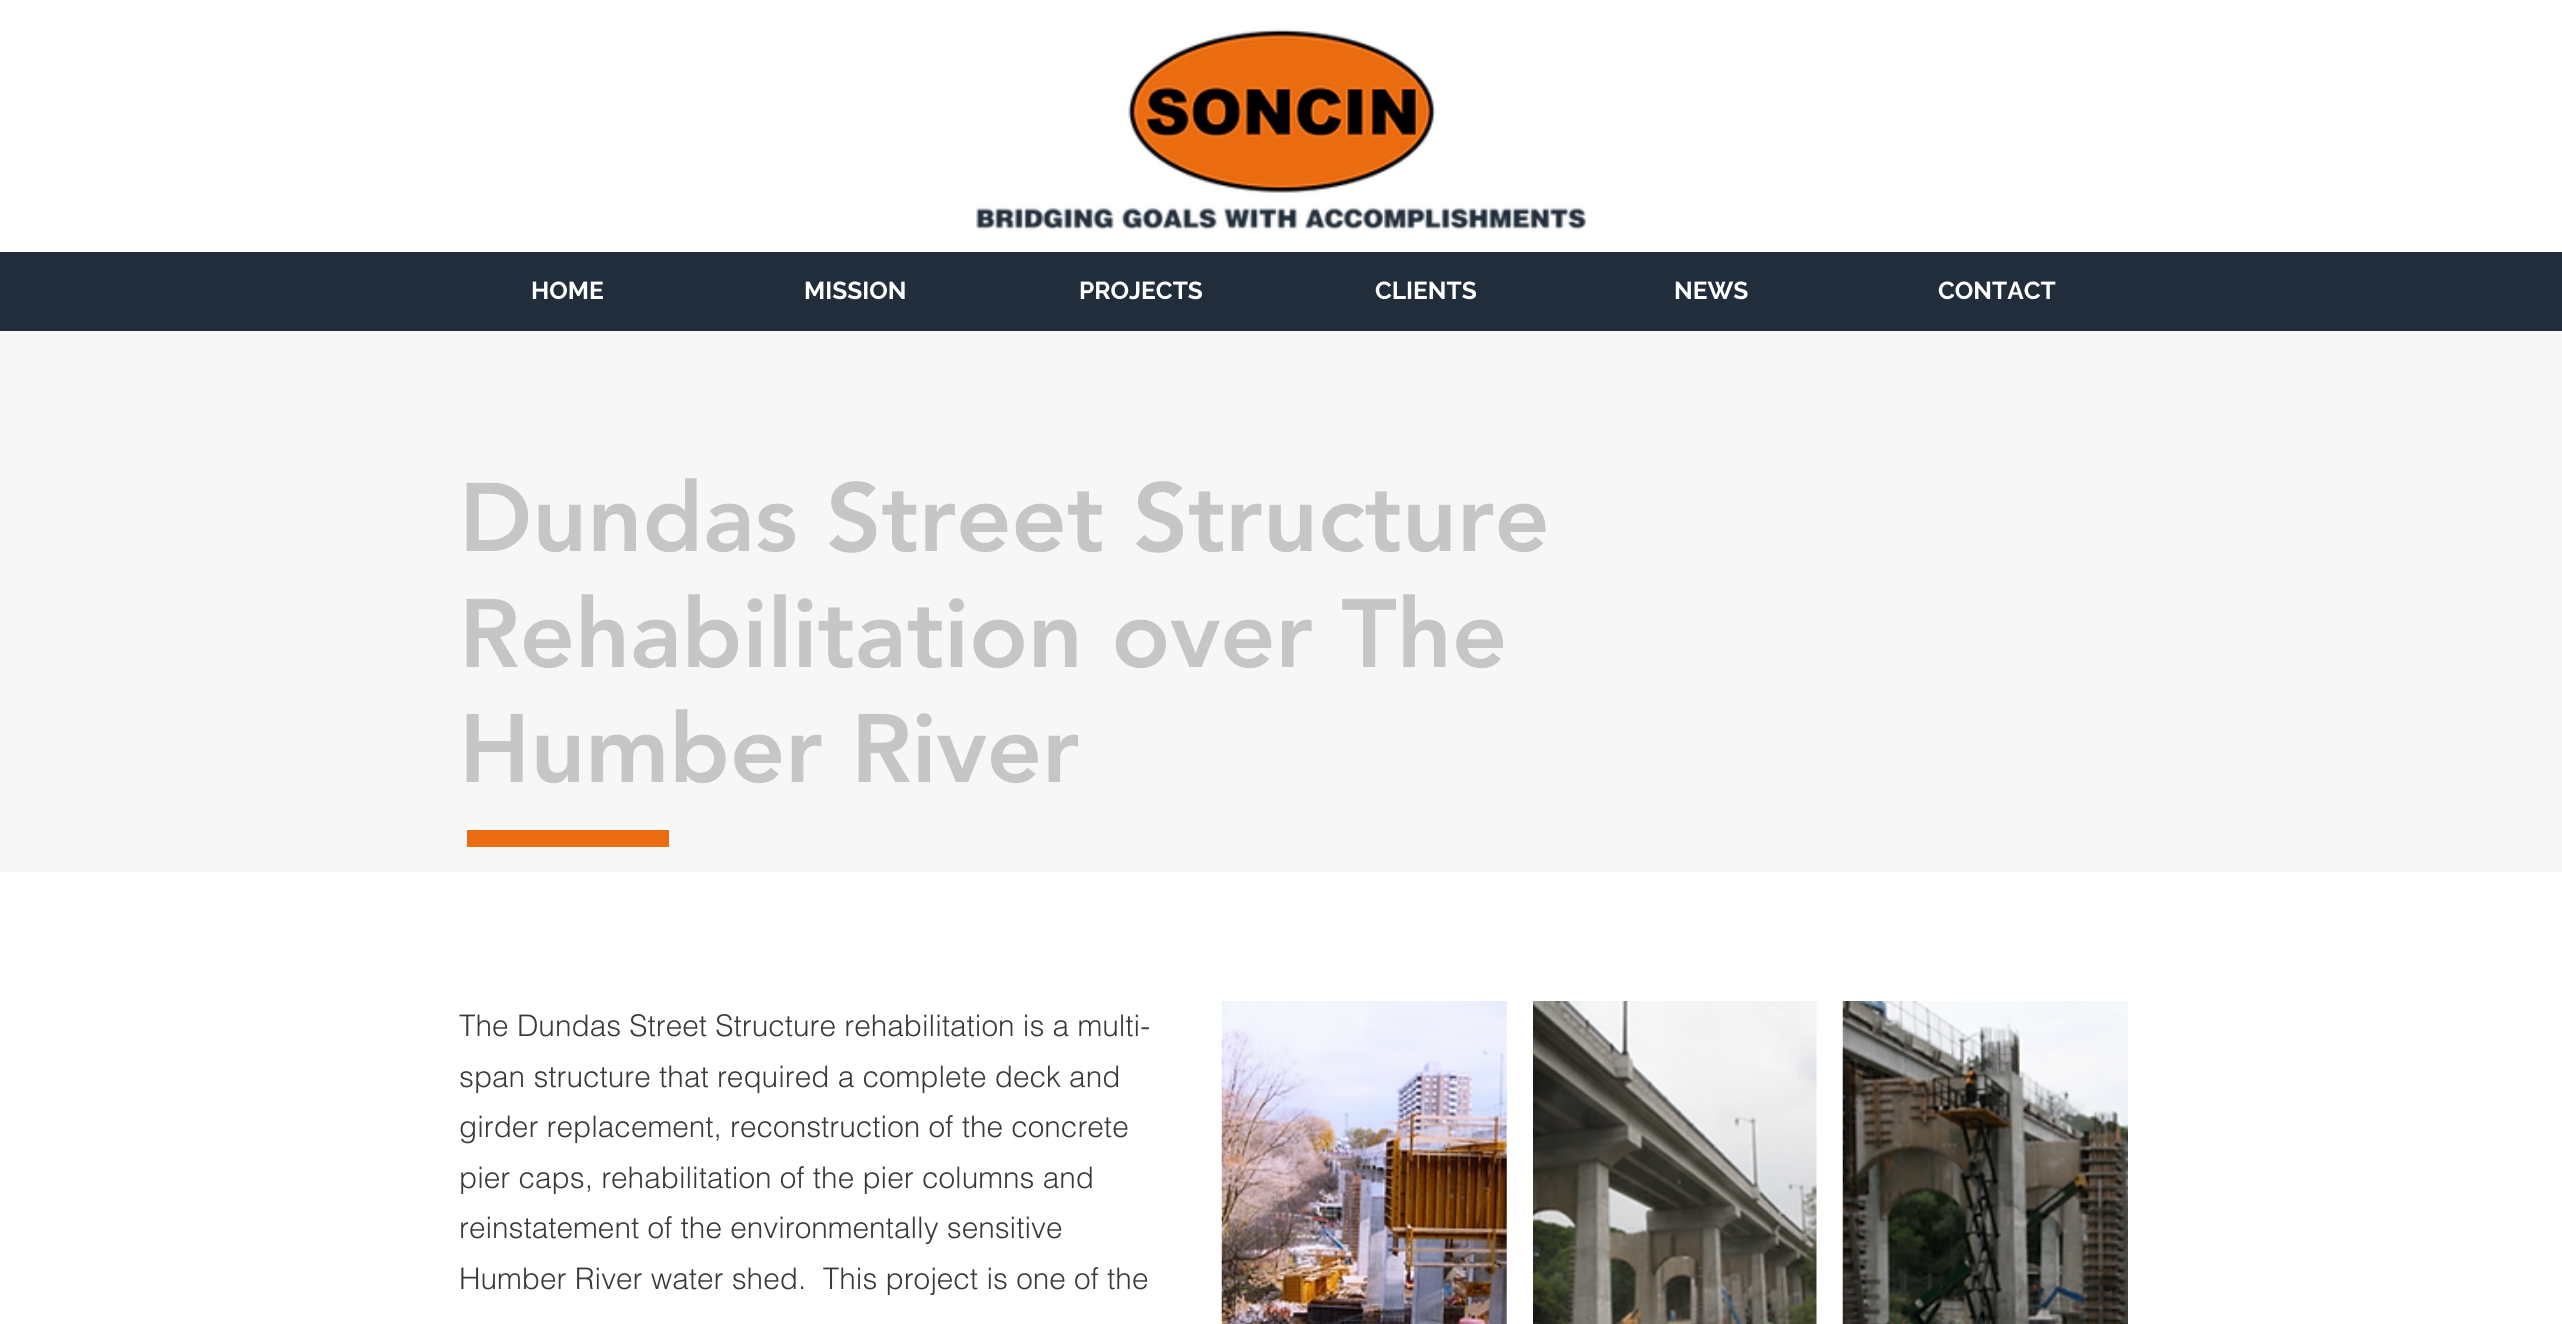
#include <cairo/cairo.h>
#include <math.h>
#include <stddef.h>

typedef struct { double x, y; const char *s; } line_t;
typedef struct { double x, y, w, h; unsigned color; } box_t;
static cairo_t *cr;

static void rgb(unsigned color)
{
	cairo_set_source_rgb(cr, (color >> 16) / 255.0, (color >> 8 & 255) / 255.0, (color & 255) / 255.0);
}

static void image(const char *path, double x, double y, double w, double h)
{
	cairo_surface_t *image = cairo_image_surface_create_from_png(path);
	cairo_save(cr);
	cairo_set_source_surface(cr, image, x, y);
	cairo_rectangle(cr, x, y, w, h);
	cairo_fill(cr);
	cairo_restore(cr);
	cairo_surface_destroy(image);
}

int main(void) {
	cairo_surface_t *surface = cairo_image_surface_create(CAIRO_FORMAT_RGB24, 2562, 1324);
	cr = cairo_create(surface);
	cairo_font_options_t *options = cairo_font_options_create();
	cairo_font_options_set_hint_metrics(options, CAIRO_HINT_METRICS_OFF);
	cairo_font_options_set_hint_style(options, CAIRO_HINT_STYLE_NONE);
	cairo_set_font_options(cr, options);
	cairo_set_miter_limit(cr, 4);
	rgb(0xffffff);
	cairo_paint(cr);
	image("img/1.png", 976, 29, 611, 201);
	{
		static const box_t items[] = {
			{0, 252, 2562, 79, 0x212d3a},
			{0, 331, 2562, 541, 0xf7f7f7},
			{467, 830, 202, 17, 0xec6d11},
		};
		for (size_t i = 0; i < sizeof items / sizeof *items; i++) {
			rgb(items[i].color);
			cairo_rectangle(cr, items[i].x, items[i].y, items[i].w, items[i].h);
			cairo_fill(cr);
		}
	}
	image("img/2.png", 1221, 1001, 286, 323);
	image("img/3.png", 1533, 1001, 284, 323);
	image("img/4.png", 1842, 1001, 286, 323);
	cairo_select_font_face(cr, "Raleway", CAIRO_FONT_SLANT_NORMAL, CAIRO_FONT_WEIGHT_BOLD);
	cairo_set_font_size(cr, 24.5);
	rgb(0xffffff);
	{
		static const line_t items[] = {
			{531, 299, "HOME"},
			{804, 299, "MISSION"},
			{1079, 299, "PROJECTS"},
			{1375, 299, "CLIENTS"},
			{1674, 299, "NEWS"},
			{1938, 299, "CONTACT"},
		};
		for (size_t i = 0; i < sizeof items / sizeof *items; i++) {
			cairo_move_to(cr, items[i].x, items[i].y);
			cairo_show_text(cr, items[i].s);
		}
	}
	cairo_select_font_face(cr, "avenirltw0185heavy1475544 Black", CAIRO_FONT_SLANT_NORMAL, CAIRO_FONT_WEIGHT_NORMAL);
	cairo_set_font_size(cr, 96.25);
	rgb(0xc6c6c6);
	{
		static const line_t items[] = {
			{459, 551, "Dundas Street Structure"},
			{459, 667, "Rehabilitation over The"},
			{459, 782, "Humber River"},
		};
		for (size_t i = 0; i < sizeof items / sizeof *items; i++) {
			cairo_move_to(cr, items[i].x, items[i].y);
			cairo_show_text(cr, items[i].s);
		}
	}
	cairo_select_font_face(cr, "helvetica Light", CAIRO_FONT_SLANT_NORMAL, CAIRO_FONT_WEIGHT_NORMAL);
	cairo_set_font_size(cr, 29.75);
	rgb(0x3b3a3a);
	{
		static const line_t items[] = {
			{459, 1036, "The Dundas Street Structure rehabilitation is a multi-"},
			{459, 1087, "span structure that required a complete deck and"},
			{459, 1137, "girder replacement, reconstruction of the concrete"},
			{459, 1188, "pier caps, rehabilitation of the pier columns and"},
			{459, 1238, "reinstatement of the environmentally sensitive"},
			{459, 1289, "Humber River water shed.  This project is one of the"},
		};
		for (size_t i = 0; i < sizeof items / sizeof *items; i++) {
			cairo_move_to(cr, items[i].x, items[i].y);
			cairo_show_text(cr, items[i].s);
		}
	}
	cairo_surface_write_to_png(surface, "page.png");
	cairo_font_options_destroy(options);
	cairo_destroy(cr);
	cairo_surface_destroy(surface);
	return 0;
}
